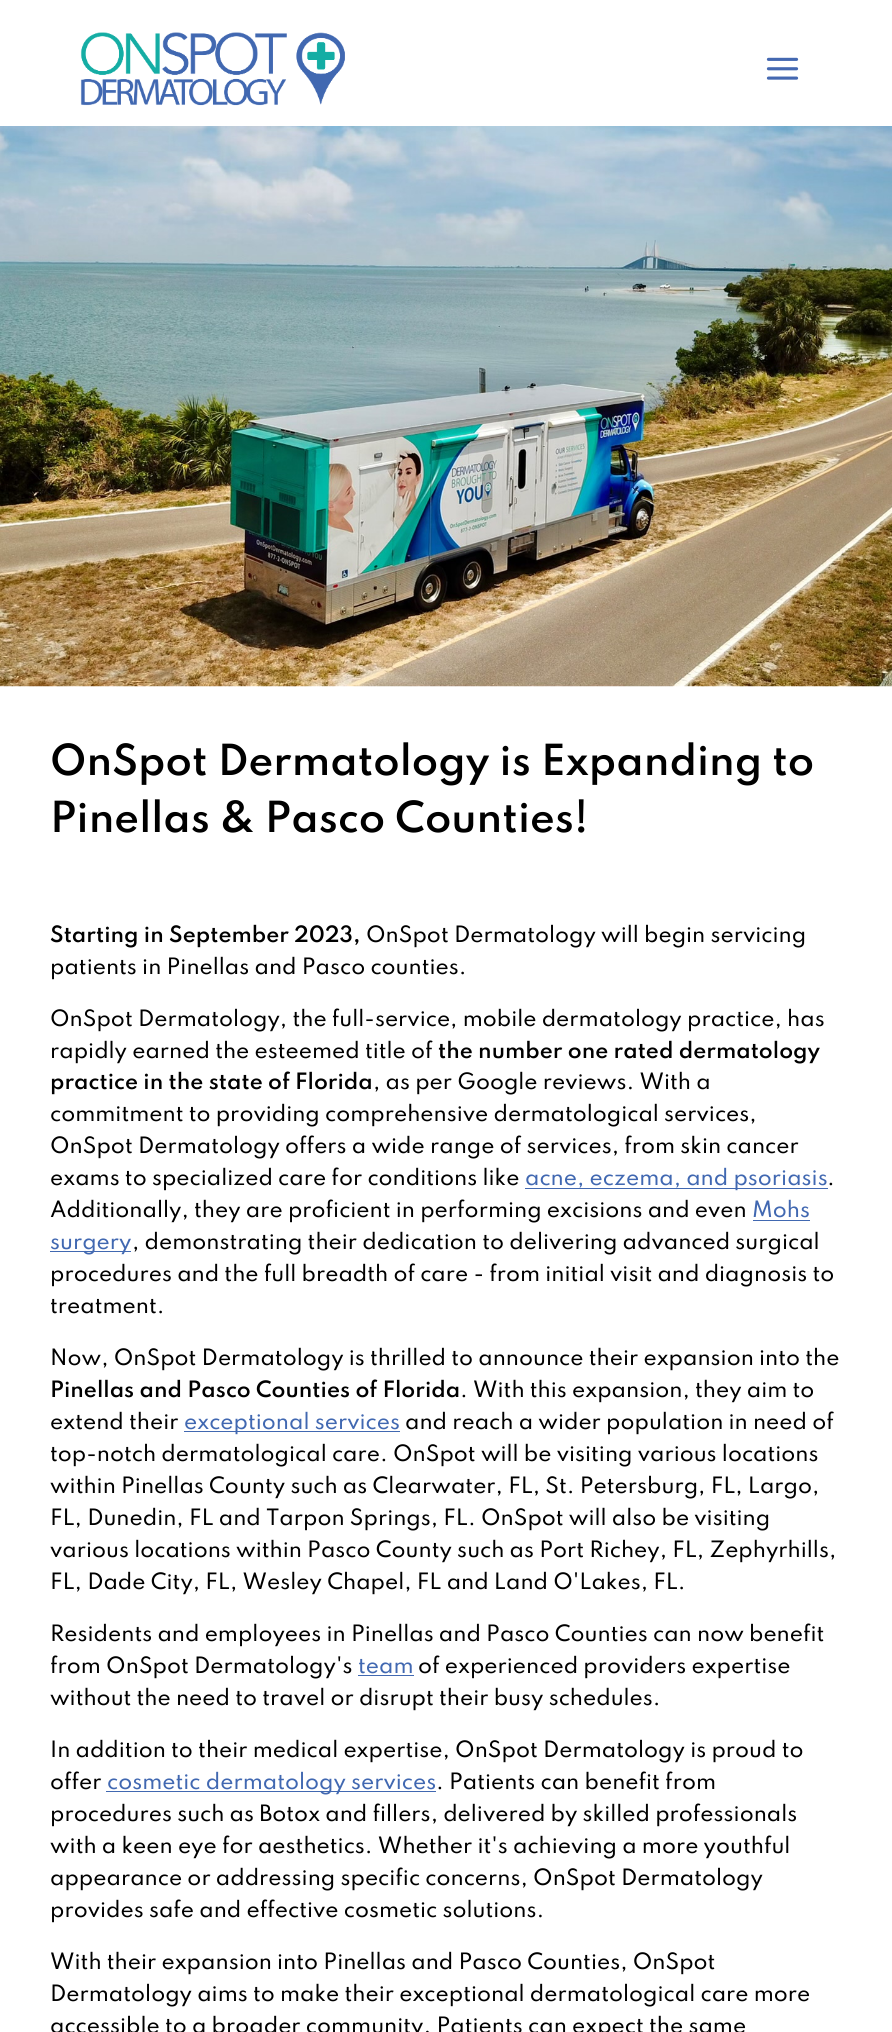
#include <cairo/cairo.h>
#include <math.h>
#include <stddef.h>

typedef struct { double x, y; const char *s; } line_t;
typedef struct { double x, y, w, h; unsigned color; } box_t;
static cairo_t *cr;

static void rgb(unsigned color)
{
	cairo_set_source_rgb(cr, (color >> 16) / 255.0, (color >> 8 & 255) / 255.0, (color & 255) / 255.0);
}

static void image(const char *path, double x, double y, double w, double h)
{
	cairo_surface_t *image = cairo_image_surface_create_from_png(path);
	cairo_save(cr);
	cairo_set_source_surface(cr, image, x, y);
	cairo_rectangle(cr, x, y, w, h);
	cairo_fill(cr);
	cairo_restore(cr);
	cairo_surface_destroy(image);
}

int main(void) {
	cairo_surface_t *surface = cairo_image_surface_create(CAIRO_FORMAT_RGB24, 892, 2032);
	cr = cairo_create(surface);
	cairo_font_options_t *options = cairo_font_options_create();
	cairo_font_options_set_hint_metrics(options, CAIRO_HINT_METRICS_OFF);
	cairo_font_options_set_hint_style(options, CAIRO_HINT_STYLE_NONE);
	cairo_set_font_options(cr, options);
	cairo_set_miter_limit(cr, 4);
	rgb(0xffffff);
	cairo_paint(cr);
	image("img/1.png", 80, 32, 265, 74);
	image("img/2.png", 766, 57, 33, 23);
	image("img/3.png", 0, 126, 892, 561);
	{
		static const box_t items[] = {
			{525, 1188, 303, 1, 0x4168b1},
			{753, 1220, 57, 1, 0x4168b1},
			{50, 1251, 81, 1, 0x4168b1},
			{184, 1431, 216, 1, 0x4168b1},
			{358, 1675, 56, 1, 0x4168b1},
			{106, 1791, 330, 1, 0x4168b1},
		};
		for (size_t i = 0; i < sizeof items / sizeof *items; i++) {
			rgb(items[i].color);
			cairo_rectangle(cr, items[i].x, items[i].y, items[i].w, items[i].h);
			cairo_fill(cr);
		}
	}
	cairo_select_font_face(cr, "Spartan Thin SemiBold", CAIRO_FONT_SLANT_NORMAL, CAIRO_FONT_WEIGHT_NORMAL);
	cairo_set_font_size(cr, 38);
	rgb(0x000000);
	cairo_move_to(cr, 50, 775);
	cairo_show_text(cr, "OnSpot Dermatology is Expanding to");
	cairo_move_to(cr, 50, 832);
	cairo_show_text(cr, "Pinellas & Pasco Counties!");
	cairo_set_font_size(cr, 20);
	cairo_move_to(cr, 50, 942);
	cairo_show_text(cr, "Starting in September 2023,");
	cairo_select_font_face(cr, "Spartan Thin Medium", CAIRO_FONT_SLANT_NORMAL, CAIRO_FONT_WEIGHT_NORMAL);
	{
		static const line_t items[] = {
			{366, 942, "OnSpot Dermatology will begin servicing"},
			{50, 974, "patients in Pinellas and Pasco counties."},
			{50, 1026, "OnSpot Dermatology, the full-service, mobile dermatology practice, has"},
			{50, 1058, "rapidly earned the esteemed title of"},
		};
		for (size_t i = 0; i < sizeof items / sizeof *items; i++) {
			cairo_move_to(cr, items[i].x, items[i].y);
			cairo_show_text(cr, items[i].s);
		}
	}
	cairo_select_font_face(cr, "Spartan Thin SemiBold", CAIRO_FONT_SLANT_NORMAL, CAIRO_FONT_WEIGHT_NORMAL);
	cairo_move_to(cr, 438, 1058);
	cairo_show_text(cr, "the number one rated dermatology");
	cairo_move_to(cr, 50, 1089);
	cairo_show_text(cr, "practice in the state of Florida");
	cairo_select_font_face(cr, "Spartan Thin Medium", CAIRO_FONT_SLANT_NORMAL, CAIRO_FONT_WEIGHT_NORMAL);
	{
		static const line_t items[] = {
			{373, 1089, ", as per Google reviews. With a"},
			{50, 1121, "commitment to providing comprehensive dermatological services,"},
			{50, 1153, "OnSpot Dermatology offers a wide range of services, from skin cancer"},
			{50, 1185, "exams to specialized care for conditions like"},
		};
		for (size_t i = 0; i < sizeof items / sizeof *items; i++) {
			cairo_move_to(cr, items[i].x, items[i].y);
			cairo_show_text(cr, items[i].s);
		}
	}
	rgb(0x4168b1);
	cairo_move_to(cr, 525, 1185);
	cairo_show_text(cr, "acne, eczema, and psoriasis");
	rgb(0x000000);
	cairo_move_to(cr, 827, 1185);
	cairo_show_text(cr, ".");
	cairo_move_to(cr, 50, 1217);
	cairo_show_text(cr, "Additionally, they are proficient in performing excisions and even");
	rgb(0x4168b1);
	cairo_move_to(cr, 752, 1217);
	cairo_show_text(cr, "Mohs");
	cairo_move_to(cr, 50, 1249);
	cairo_show_text(cr, "surgery");
	rgb(0x000000);
	{
		static const line_t items[] = {
			{132, 1249, ", demonstrating their dedication to delivering advanced surgical"},
			{50, 1281, "procedures and the full breadth of care - from initial visit and diagnosis to"},
			{50, 1313, "treatment."},
			{50, 1365, "Now, OnSpot Dermatology is thrilled to announce their expansion into the"},
		};
		for (size_t i = 0; i < sizeof items / sizeof *items; i++) {
			cairo_move_to(cr, items[i].x, items[i].y);
			cairo_show_text(cr, items[i].s);
		}
	}
	cairo_select_font_face(cr, "Spartan Thin SemiBold", CAIRO_FONT_SLANT_NORMAL, CAIRO_FONT_WEIGHT_NORMAL);
	cairo_move_to(cr, 50, 1397);
	cairo_show_text(cr, "Pinellas and Pasco Counties of Florida");
	cairo_select_font_face(cr, "Spartan Thin Medium", CAIRO_FONT_SLANT_NORMAL, CAIRO_FONT_WEIGHT_NORMAL);
	cairo_move_to(cr, 460, 1397);
	cairo_show_text(cr, ". With this expansion, they aim to");
	cairo_move_to(cr, 50, 1429);
	cairo_show_text(cr, "extend their");
	rgb(0x4168b1);
	cairo_move_to(cr, 184, 1429);
	cairo_show_text(cr, "exceptional services");
	rgb(0x000000);
	{
		static const line_t items[] = {
			{405, 1429, "and reach a wider population in need of"},
			{50, 1461, "top-notch dermatological care. OnSpot will be visiting various locations"},
			{50, 1493, "within Pinellas County such as Clearwater, FL, St. Petersburg, FL, Largo,"},
			{50, 1525, "FL, Dunedin, FL and Tarpon Springs, FL. OnSpot will also be visiting"},
			{50, 1557, "various locations within Pasco County such as Port Richey, FL, Zephyrhills,"},
			{50, 1589, "FL, Dade City, FL, Wesley Chapel, FL and Land O'Lakes, FL."},
			{50, 1641, "Residents and employees in Pinellas and Pasco Counties can now benefit"},
			{50, 1673, "from OnSpot Dermatology's"},
		};
		for (size_t i = 0; i < sizeof items / sizeof *items; i++) {
			cairo_move_to(cr, items[i].x, items[i].y);
			cairo_show_text(cr, items[i].s);
		}
	}
	rgb(0x4168b1);
	cairo_move_to(cr, 358, 1673);
	cairo_show_text(cr, "team");
	rgb(0x000000);
	{
		static const line_t items[] = {
			{418, 1673, "of experienced providers expertise"},
			{50, 1705, "without the need to travel or disrupt their busy schedules."},
			{50, 1757, "In addition to their medical expertise, OnSpot Dermatology is proud to"},
			{50, 1789, "offer"},
		};
		for (size_t i = 0; i < sizeof items / sizeof *items; i++) {
			cairo_move_to(cr, items[i].x, items[i].y);
			cairo_show_text(cr, items[i].s);
		}
	}
	rgb(0x4168b1);
	cairo_move_to(cr, 107, 1789);
	cairo_show_text(cr, "cosmetic dermatology services");
	rgb(0x000000);
	{
		static const line_t items[] = {
			{436, 1789, ". Patients can benefit from"},
			{50, 1821, "procedures such as Botox and fillers, delivered by skilled professionals"},
			{50, 1853, "with a keen eye for aesthetics. Whether it's achieving a more youthful"},
			{50, 1885, "appearance or addressing specific concerns, OnSpot Dermatology"},
			{50, 1917, "provides safe and effective cosmetic solutions."},
			{50, 1969, "With their expansion into Pinellas and Pasco Counties, OnSpot"},
			{50, 2001, "Dermatology aims to make their exceptional dermatological care more"},
			{50, 2033, "accessible to a broader community. Patients can expect the same"},
		};
		for (size_t i = 0; i < sizeof items / sizeof *items; i++) {
			cairo_move_to(cr, items[i].x, items[i].y);
			cairo_show_text(cr, items[i].s);
		}
	}
	cairo_surface_write_to_png(surface, "page.png");
	cairo_font_options_destroy(options);
	cairo_destroy(cr);
	cairo_surface_destroy(surface);
	return 0;
}
